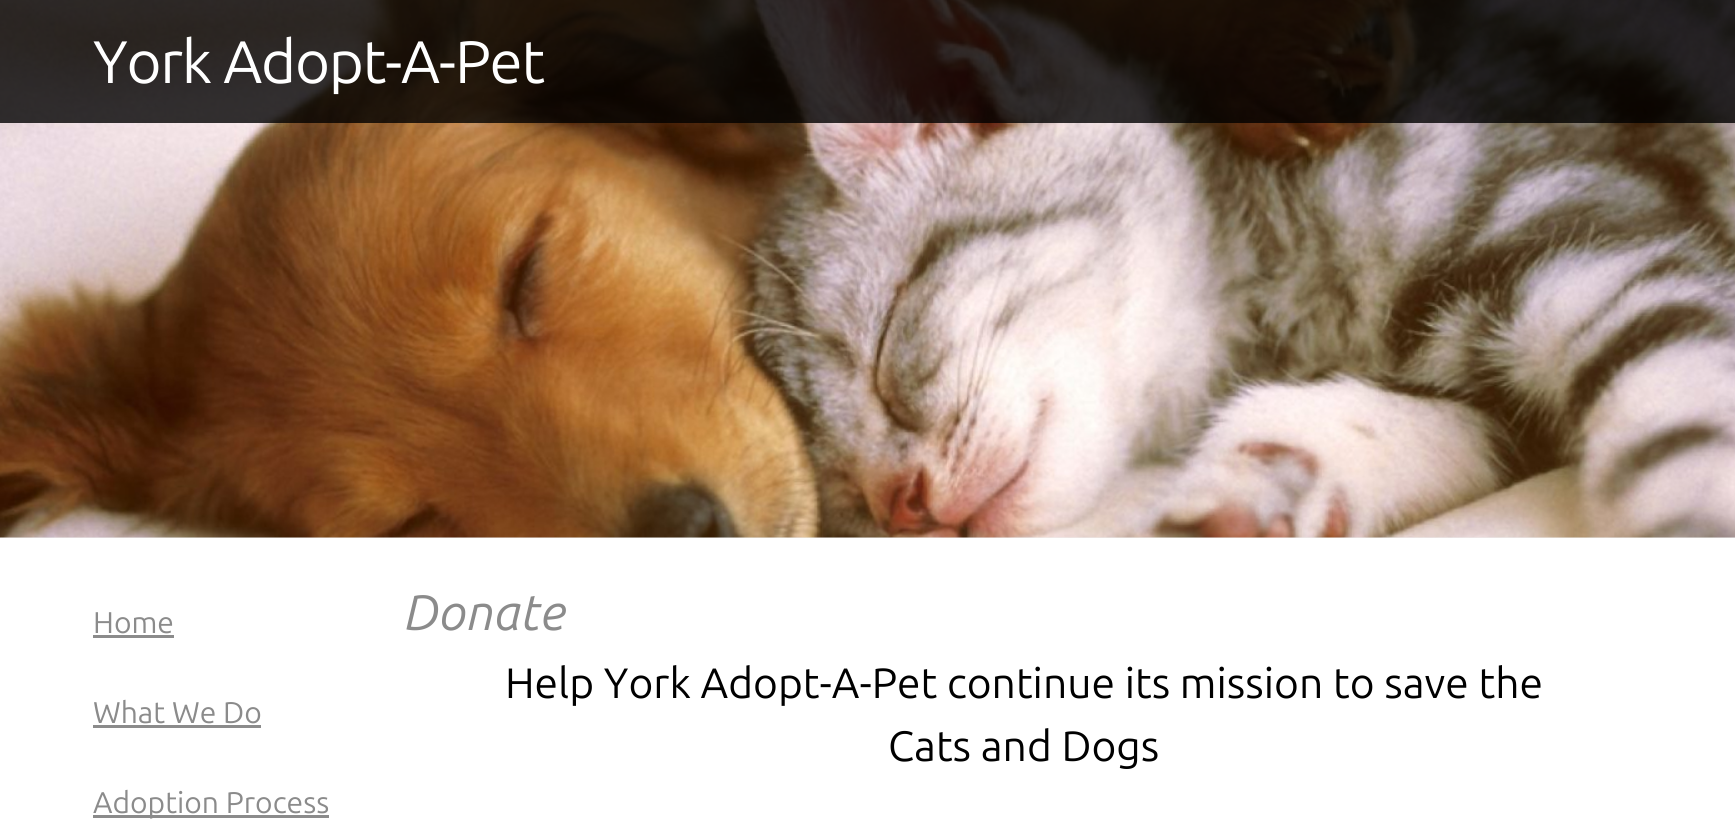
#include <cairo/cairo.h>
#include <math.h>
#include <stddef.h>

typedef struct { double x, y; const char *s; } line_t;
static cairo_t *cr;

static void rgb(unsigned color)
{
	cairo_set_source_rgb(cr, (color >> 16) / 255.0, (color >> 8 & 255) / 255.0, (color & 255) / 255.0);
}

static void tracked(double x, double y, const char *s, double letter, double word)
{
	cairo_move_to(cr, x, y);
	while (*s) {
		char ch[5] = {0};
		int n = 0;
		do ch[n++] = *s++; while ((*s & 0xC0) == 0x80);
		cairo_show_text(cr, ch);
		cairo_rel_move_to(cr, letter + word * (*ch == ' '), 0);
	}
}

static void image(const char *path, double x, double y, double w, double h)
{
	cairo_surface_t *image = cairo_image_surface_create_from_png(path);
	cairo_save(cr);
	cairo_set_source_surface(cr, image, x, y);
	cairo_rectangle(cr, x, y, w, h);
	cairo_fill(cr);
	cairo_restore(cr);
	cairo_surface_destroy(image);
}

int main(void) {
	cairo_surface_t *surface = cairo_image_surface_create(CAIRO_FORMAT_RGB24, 1735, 820);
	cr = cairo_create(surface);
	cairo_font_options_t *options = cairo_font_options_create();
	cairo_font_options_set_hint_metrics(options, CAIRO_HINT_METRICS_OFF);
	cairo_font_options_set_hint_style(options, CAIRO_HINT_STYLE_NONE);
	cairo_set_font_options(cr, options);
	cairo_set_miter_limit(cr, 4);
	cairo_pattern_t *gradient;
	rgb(0xffffff);
	cairo_paint(cr);
	gradient = cairo_pattern_create_linear(868, 538, 868, 0);
	cairo_pattern_add_color_stop_rgba(gradient, 0, 0.933, 0.933, 0.933, 1);
	cairo_pattern_add_color_stop_rgba(gradient, 1, 0.545, 0.545, 0.545, 1);
	cairo_set_source(cr, gradient);
	cairo_pattern_destroy(gradient);
	cairo_rectangle(cr, 0, 537, 1735, 1);
	cairo_fill(cr);
	image("img/1.png", 0, 0, 1735, 538);
	cairo_set_source_rgba(cr, 0, 0, 0, 0.8);
	cairo_rectangle(cr, 0, 0, 1735, 123);
	cairo_fill(cr);
	rgb(0x8b8b8b);
	cairo_rectangle(cr, 93, 635, 81, 3);
	cairo_fill(cr);
	cairo_rectangle(cr, 93, 725, 168, 3);
	cairo_fill(cr);
	cairo_rectangle(cr, 93, 815, 236, 3);
	cairo_fill(cr);
	cairo_select_font_face(cr, "Ubuntu", CAIRO_FONT_SLANT_NORMAL, CAIRO_FONT_WEIGHT_NORMAL);
	cairo_set_font_size(cr, 60);
	rgb(0xffffff);
	tracked(93, 83, "York Adopt-A-Pet", -1.25, 0);
	cairo_set_font_size(cr, 30);
	rgb(0x8b8b8b);
	{
		static const line_t items[] = {
			{93, 633, "Home"},
			{93, 723, "What We Do"},
			{93, 813, "Adoption Process"},
		};
		for (size_t i = 0; i < sizeof items / sizeof *items; i++) {
			cairo_move_to(cr, items[i].x, items[i].y);
			cairo_show_text(cr, items[i].s);
		}
	}
	cairo_select_font_face(cr, "Ubuntu", CAIRO_FONT_SLANT_ITALIC, CAIRO_FONT_WEIGHT_NORMAL);
	cairo_set_font_size(cr, 50);
	cairo_move_to(cr, 405, 630);
	cairo_show_text(cr, "Donate");
	cairo_select_font_face(cr, "Ubuntu", CAIRO_FONT_SLANT_NORMAL, CAIRO_FONT_WEIGHT_NORMAL);
	cairo_set_font_size(cr, 42.5);
	rgb(0x000000);
	cairo_move_to(cr, 505, 698);
	cairo_show_text(cr, "Help York Adopt-A-Pet continue its mission to save the");
	cairo_move_to(cr, 888, 761);
	cairo_show_text(cr, "Cats and Dogs");
	cairo_surface_write_to_png(surface, "page.png");
	cairo_font_options_destroy(options);
	cairo_destroy(cr);
	cairo_surface_destroy(surface);
	return 0;
}
